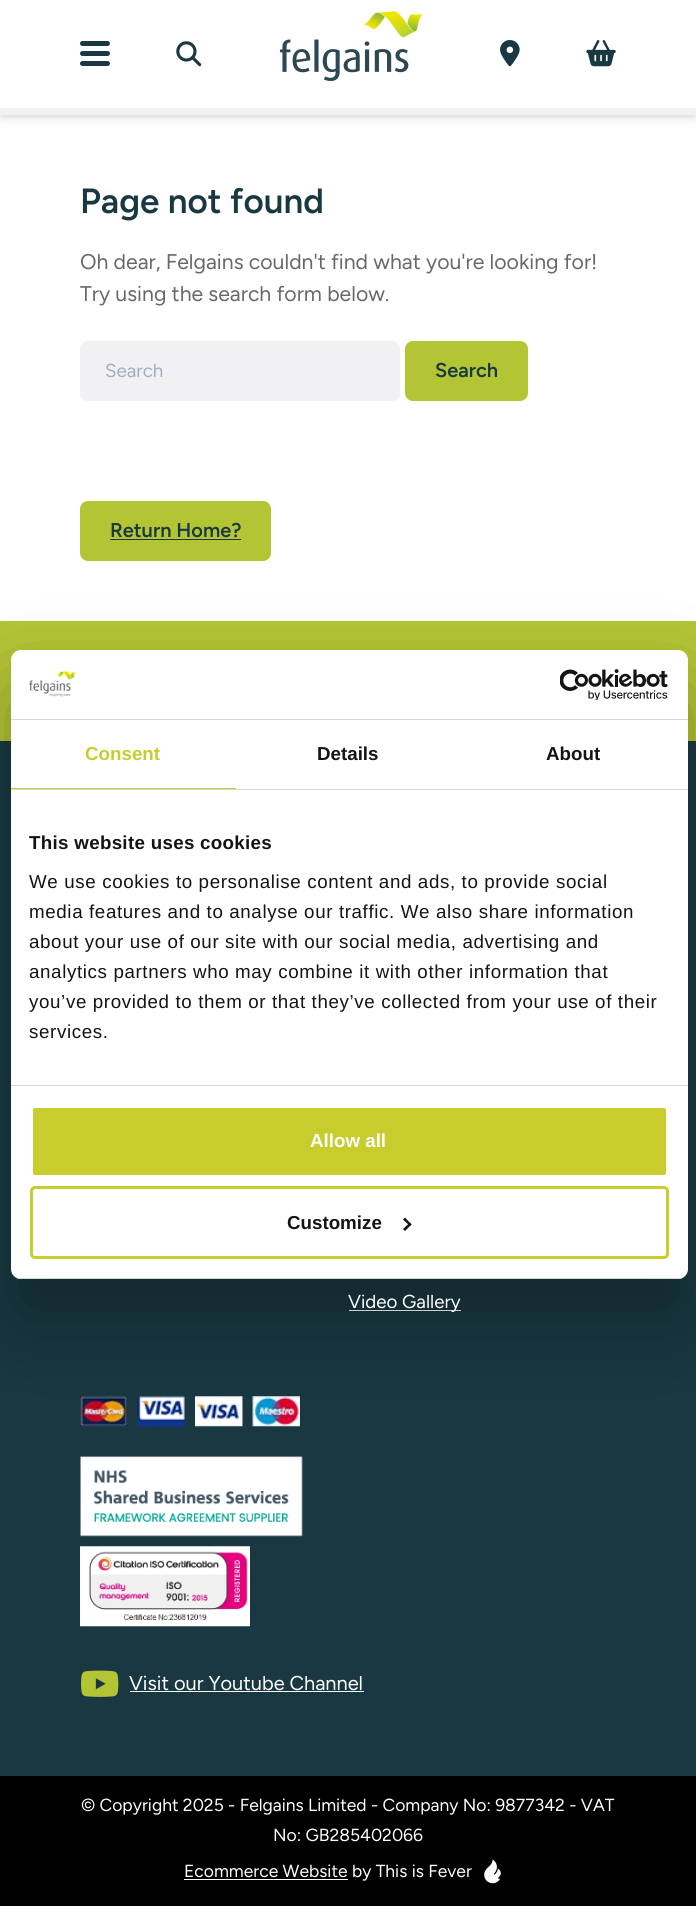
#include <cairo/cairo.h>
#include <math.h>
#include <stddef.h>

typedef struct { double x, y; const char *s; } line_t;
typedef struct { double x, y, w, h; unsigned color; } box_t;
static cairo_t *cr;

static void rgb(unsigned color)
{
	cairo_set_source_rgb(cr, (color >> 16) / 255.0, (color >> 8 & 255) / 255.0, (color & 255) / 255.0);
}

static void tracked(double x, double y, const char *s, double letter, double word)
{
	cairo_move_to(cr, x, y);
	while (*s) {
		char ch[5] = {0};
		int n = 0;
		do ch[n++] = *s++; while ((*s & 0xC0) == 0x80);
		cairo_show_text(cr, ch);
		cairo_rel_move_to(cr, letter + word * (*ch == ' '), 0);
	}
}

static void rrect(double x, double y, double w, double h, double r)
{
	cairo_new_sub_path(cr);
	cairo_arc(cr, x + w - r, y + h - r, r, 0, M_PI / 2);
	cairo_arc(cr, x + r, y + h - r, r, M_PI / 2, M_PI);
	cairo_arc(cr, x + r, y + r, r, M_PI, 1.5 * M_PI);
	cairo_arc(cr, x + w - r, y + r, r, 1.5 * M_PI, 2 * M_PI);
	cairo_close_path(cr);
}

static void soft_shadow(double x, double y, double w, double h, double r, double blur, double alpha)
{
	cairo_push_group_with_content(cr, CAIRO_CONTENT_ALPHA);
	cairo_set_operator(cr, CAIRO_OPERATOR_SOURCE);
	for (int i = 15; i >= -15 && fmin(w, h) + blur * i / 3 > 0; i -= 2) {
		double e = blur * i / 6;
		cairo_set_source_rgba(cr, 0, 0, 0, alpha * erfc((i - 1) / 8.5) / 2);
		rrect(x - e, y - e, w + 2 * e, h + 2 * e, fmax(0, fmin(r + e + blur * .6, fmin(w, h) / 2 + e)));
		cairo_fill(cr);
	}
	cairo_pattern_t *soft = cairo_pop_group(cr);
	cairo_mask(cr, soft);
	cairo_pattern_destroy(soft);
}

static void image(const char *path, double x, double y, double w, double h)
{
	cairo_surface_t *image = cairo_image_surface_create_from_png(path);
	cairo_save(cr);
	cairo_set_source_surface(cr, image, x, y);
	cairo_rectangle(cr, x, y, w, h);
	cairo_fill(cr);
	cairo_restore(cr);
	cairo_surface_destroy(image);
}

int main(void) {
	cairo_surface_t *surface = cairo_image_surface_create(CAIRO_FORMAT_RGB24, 696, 1928);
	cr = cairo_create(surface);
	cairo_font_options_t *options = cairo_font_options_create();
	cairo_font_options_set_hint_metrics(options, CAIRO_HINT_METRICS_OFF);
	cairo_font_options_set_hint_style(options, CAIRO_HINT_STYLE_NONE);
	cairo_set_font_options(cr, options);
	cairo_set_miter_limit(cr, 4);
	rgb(0xffffff);
	cairo_paint(cr);
	rgb(0x000000);
	soft_shadow(1, 26, 694, 90, 0, 2.5, 0.06);
	soft_shadow(1, 29, 694, 90, 0, 4, 0.1);
	rgb(0xffffff);
	cairo_rectangle(cr, 0, 22, 696, 86);
	cairo_fill(cr);
	rgb(0x193841);
	rrect(80, 41, 30, 5, 2.5);
	cairo_fill(cr);
	rrect(80, 51, 30, 5, 2.5);
	cairo_fill(cr);
	rrect(80, 61, 30, 5, 2.5);
	cairo_fill(cr);
	image("img/1.png", 176, 41, 26, 26);
	image("img/2.png", 279, 11, 144, 70);
	image("img/3.png", 500, 40, 20, 27);
	image("img/4.png", 586, 40, 30, 27);
	rgb(0xf1f1f3);
	cairo_rectangle(cr, 0, 108, 696, 7);
	cairo_fill(cr);
	rrect(80, 341, 320, 60, 8);
	cairo_fill(cr);
	rgb(0xb3c535);
	rrect(405, 341, 123, 60, 8);
	cairo_fill(cr);
	rrect(80, 501, 191, 60, 8);
	cairo_fill(cr);
	{
		static const box_t items[] = {
			{110, 539, 131, 1, 0x193841},
			{0, 741, 696, 1035, 0x193841},
			{0, 621, 696, 120, 0xb3c535},
			{349, 1310, 112, 1, 0xffffff},
		};
		for (size_t i = 0; i < sizeof items / sizeof *items; i++) {
			rgb(items[i].color);
			cairo_rectangle(cr, items[i].x, items[i].y, items[i].w, items[i].h);
			cairo_fill(cr);
		}
	}
	image("img/7.png", 80, 1396, 48, 31);
	image("img/8.png", 137, 1396, 48, 31);
	image("img/9.png", 195, 1396, 48, 31);
	image("img/10.png", 252, 1396, 48, 31);
	rgb(0x000000);
	soft_shadow(11, 690, 677, 629, 10, 42.5, 0.3);
	rgb(0xffffff);
	rrect(11, 650, 677, 629, 10);
	cairo_fill(cr);
	rgb(0xd6d6d6);
	cairo_rectangle(cr, 11, 719, 677, 1);
	cairo_fill(cr);
	image("img/5.png", 29, 671, 47, 26);
	image("img/6.png", 560, 669, 108, 31);
	{
		static const box_t items[] = {
			{11, 789, 677, 1, 0xd6d6d6},
			{11, 788, 225, 1, 0xc8cc2d},
			{11, 1085, 677, 1, 0xd6d6d6},
		};
		for (size_t i = 0; i < sizeof items / sizeof *items; i++) {
			rgb(items[i].color);
			cairo_rectangle(cr, items[i].x, items[i].y, items[i].w, items[i].h);
			cairo_fill(cr);
		}
	}
	cairo_save(cr);
	rrect(11, 650, 677, 629, 10);
	cairo_clip(cr);
	cairo_rectangle(cr, 11, 1278, 677, 1);
	cairo_fill(cr);
	cairo_restore(cr);
	rgb(0xc8cc2d);
	rrect(31.5, 1106.5, 636, 70, 3.5);
	cairo_fill_preserve(cr);
	rgb(0xffffff);
	cairo_set_line_width(cr, 3);
	cairo_stroke(cr);
	rrect(31.5, 1187.5, 636, 70, 3.5);
	rgb(0xc8cc2d);
	cairo_stroke(cr);
	rgb(0x141414);
	cairo_new_path(cr);
	cairo_move_to(cr, 405, 1217.5);
	cairo_line_to(cr, 411.5, 1224.5);
	cairo_line_to(cr, 410, 1226);
	cairo_line_to(cr, 403, 1219.5);
	cairo_close_path(cr);
	cairo_fill(cr);
	cairo_new_path(cr);
	cairo_move_to(cr, 410, 1222.5);
	cairo_line_to(cr, 411.5, 1224.5);
	cairo_line_to(cr, 405, 1231);
	cairo_line_to(cr, 403, 1229);
	cairo_close_path(cr);
	cairo_fill(cr);
	image("img/11.png", 80, 1456, 223, 81);
	image("img/12.png", 80, 1546, 170, 81);
	image("img/13.png", 81, 1670, 38, 27);
	{
		static const box_t items[] = {
			{130, 1691, 234, 1, 0xffffff},
			{0, 1776, 696, 130, 0x000000},
			{184, 1879, 164, 1, 0xffffff},
		};
		for (size_t i = 0; i < sizeof items / sizeof *items; i++) {
			rgb(items[i].color);
			cairo_rectangle(cr, items[i].x, items[i].y, items[i].w, items[i].h);
			cairo_fill(cr);
		}
	}
	image("img/14.png", 484, 1859, 17, 25);
	cairo_select_font_face(cr, "Figtree SemiBold", CAIRO_FONT_SLANT_NORMAL, CAIRO_FONT_WEIGHT_NORMAL);
	cairo_set_font_size(cr, 35);
	rgb(0x193841);
	cairo_move_to(cr, 80, 213);
	cairo_show_text(cr, "Page not found");
	cairo_select_font_face(cr, "Figtree", CAIRO_FONT_SLANT_NORMAL, CAIRO_FONT_WEIGHT_NORMAL);
	cairo_set_font_size(cr, 21.25);
	rgb(0x686868);
	cairo_move_to(cr, 80, 269);
	cairo_show_text(cr, "Oh dear, Felgains couldn't find what you're looking for!");
	cairo_move_to(cr, 80, 301);
	cairo_show_text(cr, "Try using the search form below.");
	cairo_set_font_size(cr, 18.75);
	rgb(0xa0aec0);
	cairo_move_to(cr, 105, 377);
	cairo_show_text(cr, "Search");
	cairo_select_font_face(cr, "Figtree SemiBold", CAIRO_FONT_SLANT_NORMAL, CAIRO_FONT_WEIGHT_NORMAL);
	cairo_set_font_size(cr, 20);
	rgb(0x193841);
	cairo_move_to(cr, 435, 377);
	cairo_show_text(cr, "Search");
	cairo_move_to(cr, 110, 537);
	cairo_show_text(cr, "Return Home?");
	cairo_select_font_face(cr, "Liberation Sans", CAIRO_FONT_SLANT_NORMAL, CAIRO_FONT_WEIGHT_BOLD);
	cairo_set_font_size(cr, 18.75);
	rgb(0xc8cc2d);
	cairo_move_to(cr, 85, 760);
	cairo_show_text(cr, "Consent");
	rgb(0x141414);
	cairo_move_to(cr, 317, 760);
	cairo_show_text(cr, "Details");
	cairo_move_to(cr, 546, 760);
	cairo_show_text(cr, "About");
	tracked(29, 849, "This website uses cookies", 0.3, 0);
	cairo_select_font_face(cr, "Liberation Sans", CAIRO_FONT_SLANT_NORMAL, CAIRO_FONT_WEIGHT_NORMAL);
	{
		static const line_t items[] = {
			{29, 888, "We use cookies to personalise content and ads, to provide social"},
			{29, 918, "media features and to analyse our traffic. We also share information"},
			{29, 948, "about your use of our site with our social media, advertising and"},
			{29, 978, "analytics partners who may combine it with other information that"},
			{29, 1008, "you’ve provided to them or that they’ve collected from your use of their"},
			{29, 1038, "services."},
		};
		for (size_t i = 0; i < sizeof items / sizeof *items; i++) {
			tracked(items[i].x, items[i].y, items[i].s, 0.62, 0);
		}
	}
	cairo_select_font_face(cr, "Liberation Sans", CAIRO_FONT_SLANT_NORMAL, CAIRO_FONT_WEIGHT_BOLD);
	rgb(0xffffff);
	cairo_move_to(cr, 310, 1147);
	cairo_show_text(cr, "Allow all");
	rgb(0x141414);
	cairo_move_to(cr, 287, 1229);
	cairo_show_text(cr, "Customize");
	cairo_select_font_face(cr, "Figtree", CAIRO_FONT_SLANT_NORMAL, CAIRO_FONT_WEIGHT_NORMAL);
	rgb(0xffffff);
	cairo_move_to(cr, 348, 1308);
	cairo_show_text(cr, "Video Gallery");
	cairo_set_font_size(cr, 20);
	cairo_move_to(cr, 129, 1690);
	cairo_show_text(cr, "Visit our Youtube Channel");
	cairo_set_font_size(cr, 17.5);
	{
		static const line_t items[] = {
			{81, 1811, "© Copyright 2025 - Felgains Limited - Company No: 9877342 - VAT"},
			{273, 1841, "No: GB285402066"},
			{184, 1877, "Ecommerce Website by This is Fever"},
		};
		for (size_t i = 0; i < sizeof items / sizeof *items; i++) {
			cairo_move_to(cr, items[i].x, items[i].y);
			cairo_show_text(cr, items[i].s);
		}
	}
	cairo_surface_write_to_png(surface, "page.png");
	cairo_font_options_destroy(options);
	cairo_destroy(cr);
	cairo_surface_destroy(surface);
	return 0;
}
